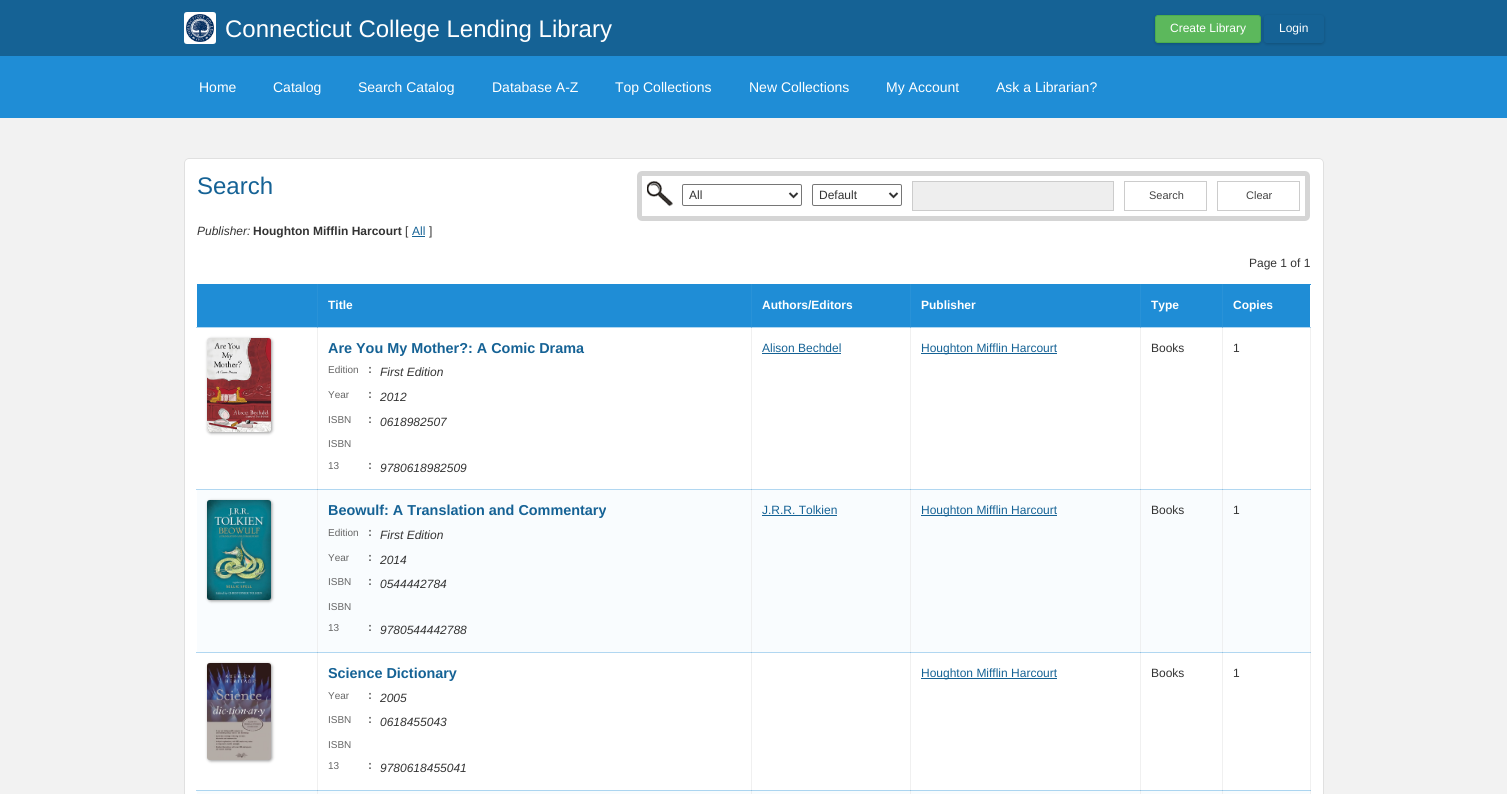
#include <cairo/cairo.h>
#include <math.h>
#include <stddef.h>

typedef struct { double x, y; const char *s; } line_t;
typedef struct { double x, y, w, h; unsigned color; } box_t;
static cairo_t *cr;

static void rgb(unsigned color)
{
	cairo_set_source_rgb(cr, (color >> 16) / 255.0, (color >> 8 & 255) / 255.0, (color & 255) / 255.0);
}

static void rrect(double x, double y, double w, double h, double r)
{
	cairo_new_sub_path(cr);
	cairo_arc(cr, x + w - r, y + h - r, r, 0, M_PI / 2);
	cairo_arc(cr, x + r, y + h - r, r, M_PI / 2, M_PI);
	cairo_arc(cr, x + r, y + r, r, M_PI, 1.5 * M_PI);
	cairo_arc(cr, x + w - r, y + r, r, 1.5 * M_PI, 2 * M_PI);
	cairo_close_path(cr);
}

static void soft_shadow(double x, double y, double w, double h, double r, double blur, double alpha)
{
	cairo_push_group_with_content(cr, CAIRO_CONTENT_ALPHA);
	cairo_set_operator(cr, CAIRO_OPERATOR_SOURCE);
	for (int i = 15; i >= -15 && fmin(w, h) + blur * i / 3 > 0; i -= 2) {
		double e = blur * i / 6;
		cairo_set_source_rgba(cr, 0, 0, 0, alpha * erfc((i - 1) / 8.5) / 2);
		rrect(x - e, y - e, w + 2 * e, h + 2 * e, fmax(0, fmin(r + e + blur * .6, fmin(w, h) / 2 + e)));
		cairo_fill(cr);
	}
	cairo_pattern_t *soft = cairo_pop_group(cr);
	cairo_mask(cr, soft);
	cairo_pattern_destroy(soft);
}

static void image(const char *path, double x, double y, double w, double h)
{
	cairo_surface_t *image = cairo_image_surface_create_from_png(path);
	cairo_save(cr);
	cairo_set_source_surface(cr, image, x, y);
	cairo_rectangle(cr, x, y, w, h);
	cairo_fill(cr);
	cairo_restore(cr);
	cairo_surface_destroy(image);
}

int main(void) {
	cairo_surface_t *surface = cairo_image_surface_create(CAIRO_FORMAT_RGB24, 1507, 794);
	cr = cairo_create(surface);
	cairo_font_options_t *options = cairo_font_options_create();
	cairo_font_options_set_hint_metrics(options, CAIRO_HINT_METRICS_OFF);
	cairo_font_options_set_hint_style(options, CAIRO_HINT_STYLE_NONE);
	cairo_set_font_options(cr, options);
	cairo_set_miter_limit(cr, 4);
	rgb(0xf2f2f2);
	cairo_paint(cr);
	rgb(0x156295);
	cairo_rectangle(cr, 0, 0, 1507, 56);
	cairo_fill(cr);
	image("img/1.png", 184, 12, 32, 32);
	rgb(0x000000);
	soft_shadow(1155, 16, 106, 28, 3, 1.5, 0.2);
	rgb(0x5cb85c);
	rrect(1155.5, 15.5, 105, 27, 2.5);
	cairo_fill_preserve(cr);
	rgb(0x4cae4c);
	cairo_set_line_width(cr, 1);
	cairo_stroke(cr);
	rgb(0x000000);
	soft_shadow(1264, 16, 60, 28, 3, 1.5, 0.2);
	rgb(0x156295);
	rrect(1264.5, 15.5, 59, 27, 2.5);
	cairo_fill_preserve(cr);
	cairo_stroke(cr);
	rgb(0x1f8dd6);
	cairo_rectangle(cr, 0, 56, 1507, 62);
	cairo_fill(cr);
	rgb(0xffffff);
	rrect(184, 158, 1140, 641, 5);
	cairo_fill(cr);
	{
		static const box_t items[] = {
			{196, 327, 1115, 1, 0xb1d7f1},
			{1310, 327, 1, 1, 0xfefefe},
			{196, 489, 122, 1, 0xb1d7f1},
			{317, 327, 1, 163, 0xf0f0f0},
			{317, 327, 1, 1, 0x79b7e1},
			{317, 489, 435, 1, 0xb1d7f1},
			{751, 327, 1, 163, 0xf0f0f0},
			{751, 327, 1, 1, 0x79b7e1},
			{751, 489, 160, 1, 0xb1d7f1},
			{910, 327, 1, 163, 0xf0f0f0},
			{910, 327, 1, 1, 0x79b7e1},
			{910, 489, 231, 1, 0xb1d7f1},
			{1140, 327, 1, 163, 0xf0f0f0},
			{1140, 327, 1, 1, 0x79b7e1},
			{1140, 489, 83, 1, 0xb1d7f1},
			{1222, 327, 1, 163, 0xf0f0f0},
			{1222, 327, 1, 1, 0x79b7e1},
			{1222, 489, 89, 1, 0xb1d7f1},
			{1310, 327, 1, 163, 0xf0f0f0},
			{1310, 327, 1, 1, 0xa7cde7},
			{196, 652, 1115, 1, 0xb1d7f1},
			{317, 489, 1, 1, 0x93c2e2},
			{751, 489, 1, 1, 0x93c2e2},
			{910, 489, 1, 1, 0x93c2e2},
			{1140, 489, 1, 1, 0x93c2e2},
			{1222, 489, 1, 1, 0x93c2e2},
			{1310, 489, 1, 302, 0xf0f0f0},
			{1310, 489, 1, 1, 0xa4cae4},
			{196, 790, 1, 1, 0xb1d7f1},
			{317, 652, 1, 139, 0xf0f0f0},
			{317, 652, 1, 1, 0x93c2e2},
			{751, 652, 1, 139, 0xf0f0f0},
			{751, 652, 1, 1, 0x93c2e2},
			{910, 652, 1, 139, 0xf0f0f0},
			{910, 652, 1, 1, 0x93c2e2},
			{1140, 652, 1, 139, 0xf0f0f0},
			{1140, 652, 1, 1, 0x93c2e2},
			{1222, 652, 1, 139, 0xf0f0f0},
			{1222, 652, 1, 1, 0x93c2e2},
			{1310, 652, 1, 1, 0xa4cae4},
		};
		for (size_t i = 0; i < sizeof items / sizeof *items; i++) {
			rgb(items[i].color);
			cairo_rectangle(cr, items[i].x, items[i].y, items[i].w, items[i].h);
			cairo_fill(cr);
		}
	}
	rrect(184.5, 158.5, 1139, 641, 4.5);
	rgb(0xe0e0e0);
	cairo_stroke(cr);
	rrect(639.5, 173.5, 668, 45, 2.5);
	rgb(0xd5d5d5);
	cairo_set_line_width(cr, 5);
	cairo_stroke(cr);
	image("img/2.png", 647, 181, 26, 26);
	rrect(682.5, 184.5, 119, 21, 1.5);
	rgb(0x767676);
	cairo_set_line_width(cr, 1);
	cairo_stroke(cr);
	cairo_new_path(cr);
	cairo_move_to(cr, 789.5, 193);
	cairo_line_to(cr, 793.5, 197);
	cairo_line_to(cr, 797.5, 193);
	rgb(0x333333);
	cairo_set_line_width(cr, 2);
	cairo_stroke(cr);
	rrect(812.5, 184.5, 89, 21, 1.5);
	rgb(0x767676);
	cairo_set_line_width(cr, 1);
	cairo_stroke(cr);
	cairo_new_path(cr);
	cairo_move_to(cr, 889.5, 193);
	cairo_line_to(cr, 893.5, 197);
	cairo_line_to(cr, 897.5, 193);
	rgb(0x333333);
	cairo_set_line_width(cr, 2);
	cairo_stroke(cr);
	rgb(0xeeeeee);
	cairo_rectangle(cr, 912.5, 181.5, 201, 29);
	cairo_fill_preserve(cr);
	rgb(0xcccccc);
	cairo_set_line_width(cr, 1);
	cairo_stroke(cr);
	cairo_rectangle(cr, 1124.5, 181.5, 82, 29);
	cairo_stroke(cr);
	cairo_rectangle(cr, 1217.5, 181.5, 82, 29);
	cairo_stroke(cr);
	{
		static const box_t items[] = {
			{412, 236, 13, 1, 0x156295},
			{197, 284, 1114, 1, 0x1f8dd6},
			{317, 284, 1, 1, 0x2992d7},
			{751, 284, 1, 1, 0x2992d7},
			{910, 284, 1, 1, 0x2992d7},
			{1140, 284, 1, 1, 0x2992d7},
			{1222, 284, 1, 1, 0x2992d7},
			{1310, 284, 1, 1, 0x2992d7},
			{197, 285, 120, 42, 0x1f8dd6},
			{318, 285, 433, 42, 0x1f8dd6},
			{317, 285, 1, 42, 0x2992d7},
			{752, 285, 158, 42, 0x1f8dd6},
			{751, 285, 1, 42, 0x2992d7},
			{910, 285, 1, 42, 0x2992d7},
			{911, 285, 229, 42, 0x1f8dd6},
			{1141, 285, 81, 42, 0x1f8dd6},
			{1140, 285, 1, 42, 0x2992d7},
			{1222, 285, 1, 42, 0x2992d7},
			{1223, 285, 87, 42, 0x1f8dd6},
		};
		for (size_t i = 0; i < sizeof items / sizeof *items; i++) {
			rgb(items[i].color);
			cairo_rectangle(cr, items[i].x, items[i].y, items[i].w, items[i].h);
			cairo_fill(cr);
		}
	}
	rgb(0x999999);
	soft_shadow(208, 339, 64, 94, 3, 1.5, 1);
	image("img/3.png", 207, 338, 64, 94);
	{
		static const box_t items[] = {
			{762, 353, 79, 1, 0x156295},
			{921, 353, 136, 1, 0x156295},
			{197, 490, 1113, 162, 0xf9fcfe},
			{317, 490, 1, 162, 0xeeeff0},
			{751, 490, 1, 162, 0xeeeff0},
			{910, 490, 1, 162, 0xeeeff0},
			{1140, 490, 1, 162, 0xeeeff0},
			{1222, 490, 1, 162, 0xeeeff0},
		};
		for (size_t i = 0; i < sizeof items / sizeof *items; i++) {
			rgb(items[i].color);
			cairo_rectangle(cr, items[i].x, items[i].y, items[i].w, items[i].h);
			cairo_fill(cr);
		}
	}
	rgb(0x999999);
	soft_shadow(208, 501, 64, 100, 3, 1.5, 1);
	image("img/4.png", 207, 500, 64, 100);
	rgb(0x156295);
	cairo_rectangle(cr, 762, 515, 75, 1);
	cairo_fill(cr);
	cairo_rectangle(cr, 921, 515, 136, 1);
	cairo_fill(cr);
	rgb(0x999999);
	soft_shadow(208, 664, 64, 97, 3, 1.5, 1);
	image("img/5.png", 207, 663, 64, 97);
	{
		static const box_t items[] = {
			{921, 678, 136, 1, 0x156295},
			{197, 791, 1113, 3, 0xf8fcfe},
			{197, 790, 1113, 1, 0xacd5f0},
			{317, 790, 1, 4, 0xeeeff0},
			{317, 790, 1, 1, 0x93c2e2},
			{751, 790, 1, 4, 0xeeeff0},
			{751, 790, 1, 1, 0x93c2e2},
			{910, 790, 1, 4, 0xeeeff0},
			{910, 790, 1, 1, 0x93c2e2},
			{1140, 790, 1, 4, 0xeeeff0},
			{1140, 790, 1, 1, 0x93c2e2},
			{1222, 790, 1, 4, 0xeeeff0},
			{1222, 790, 1, 1, 0x93c2e2},
			{1310, 790, 1, 4, 0xf0f0f0},
			{1310, 790, 1, 1, 0xa4cae4},
		};
		for (size_t i = 0; i < sizeof items / sizeof *items; i++) {
			rgb(items[i].color);
			cairo_rectangle(cr, items[i].x, items[i].y, items[i].w, items[i].h);
			cairo_fill(cr);
		}
	}
	cairo_select_font_face(cr, "Liberation Sans", CAIRO_FONT_SLANT_NORMAL, CAIRO_FONT_WEIGHT_NORMAL);
	cairo_set_font_size(cr, 24);
	rgb(0xffffff);
	cairo_move_to(cr, 225, 37);
	cairo_show_text(cr, "Connecticut College Lending Library");
	cairo_set_font_size(cr, 12);
	cairo_move_to(cr, 1170, 32);
	cairo_show_text(cr, "Create Library");
	cairo_move_to(cr, 1279, 32);
	cairo_show_text(cr, "Login");
	cairo_set_font_size(cr, 14);
	{
		static const line_t items[] = {
			{199, 92, "Home"},
			{273, 92, "Catalog"},
			{358, 92, "Search Catalog"},
			{492, 92, "Database A-Z"},
			{615, 92, "Top Collections"},
			{749, 92, "New Collections"},
			{886, 92, "My Account"},
			{996, 92, "Ask a Librarian?"},
		};
		for (size_t i = 0; i < sizeof items / sizeof *items; i++) {
			cairo_move_to(cr, items[i].x, items[i].y);
			cairo_show_text(cr, items[i].s);
		}
	}
	cairo_set_font_size(cr, 24);
	rgb(0x156295);
	cairo_move_to(cr, 197, 194);
	cairo_show_text(cr, "Search");
	cairo_set_font_size(cr, 12);
	rgb(0x333333);
	cairo_move_to(cr, 689, 199);
	cairo_show_text(cr, "All");
	cairo_move_to(cr, 819, 199);
	cairo_show_text(cr, "Default");
	cairo_set_font_size(cr, 11);
	rgb(0x444444);
	cairo_move_to(cr, 1149, 199);
	cairo_show_text(cr, "Search");
	cairo_move_to(cr, 1246, 199);
	cairo_show_text(cr, "Clear");
	cairo_select_font_face(cr, "Liberation Sans", CAIRO_FONT_SLANT_ITALIC, CAIRO_FONT_WEIGHT_NORMAL);
	cairo_set_font_size(cr, 12);
	rgb(0x333333);
	cairo_move_to(cr, 197, 235);
	cairo_show_text(cr, "Publisher:");
	cairo_select_font_face(cr, "Liberation Sans", CAIRO_FONT_SLANT_NORMAL, CAIRO_FONT_WEIGHT_BOLD);
	cairo_move_to(cr, 253, 235);
	cairo_show_text(cr, "Houghton Mifflin Harcourt");
	cairo_select_font_face(cr, "Liberation Sans", CAIRO_FONT_SLANT_NORMAL, CAIRO_FONT_WEIGHT_NORMAL);
	cairo_move_to(cr, 405, 235);
	cairo_show_text(cr, "[");
	rgb(0x156295);
	cairo_move_to(cr, 412, 235);
	cairo_show_text(cr, "All");
	rgb(0x333333);
	cairo_move_to(cr, 429, 235);
	cairo_show_text(cr, "]");
	cairo_move_to(cr, 1249, 267);
	cairo_show_text(cr, "Page 1 of 1");
	cairo_select_font_face(cr, "Liberation Sans", CAIRO_FONT_SLANT_NORMAL, CAIRO_FONT_WEIGHT_BOLD);
	rgb(0xffffff);
	{
		static const line_t items[] = {
			{328, 309, "Title"},
			{762, 309, "Authors/Editors"},
			{921, 309, "Publisher"},
			{1151, 309, "Type"},
			{1233, 309, "Copies"},
		};
		for (size_t i = 0; i < sizeof items / sizeof *items; i++) {
			cairo_move_to(cr, items[i].x, items[i].y);
			cairo_show_text(cr, items[i].s);
		}
	}
	cairo_set_font_size(cr, 14.4);
	rgb(0x156295);
	cairo_move_to(cr, 328, 353);
	cairo_show_text(cr, "Are You My Mother?: A Comic Drama");
	cairo_select_font_face(cr, "Liberation Sans", CAIRO_FONT_SLANT_NORMAL, CAIRO_FONT_WEIGHT_NORMAL);
	cairo_set_font_size(cr, 10);
	rgb(0x666666);
	cairo_move_to(cr, 328, 373);
	cairo_show_text(cr, "Edition");
	cairo_select_font_face(cr, "Liberation Sans", CAIRO_FONT_SLANT_NORMAL, CAIRO_FONT_WEIGHT_BOLD);
	cairo_set_font_size(cr, 12);
	cairo_move_to(cr, 368, 373);
	cairo_show_text(cr, ":");
	cairo_select_font_face(cr, "Liberation Sans", CAIRO_FONT_SLANT_ITALIC, CAIRO_FONT_WEIGHT_NORMAL);
	rgb(0x333333);
	cairo_move_to(cr, 380, 376);
	cairo_show_text(cr, "First Edition");
	cairo_select_font_face(cr, "Liberation Sans", CAIRO_FONT_SLANT_NORMAL, CAIRO_FONT_WEIGHT_NORMAL);
	cairo_set_font_size(cr, 10);
	rgb(0x666666);
	cairo_move_to(cr, 328, 398);
	cairo_show_text(cr, "Year");
	cairo_select_font_face(cr, "Liberation Sans", CAIRO_FONT_SLANT_NORMAL, CAIRO_FONT_WEIGHT_BOLD);
	cairo_set_font_size(cr, 12);
	cairo_move_to(cr, 368, 398);
	cairo_show_text(cr, ":");
	cairo_select_font_face(cr, "Liberation Sans", CAIRO_FONT_SLANT_ITALIC, CAIRO_FONT_WEIGHT_NORMAL);
	rgb(0x333333);
	cairo_move_to(cr, 380, 401);
	cairo_show_text(cr, "2012");
	cairo_select_font_face(cr, "Liberation Sans", CAIRO_FONT_SLANT_NORMAL, CAIRO_FONT_WEIGHT_NORMAL);
	cairo_set_font_size(cr, 10);
	rgb(0x666666);
	cairo_move_to(cr, 328, 423);
	cairo_show_text(cr, "ISBN");
	cairo_select_font_face(cr, "Liberation Sans", CAIRO_FONT_SLANT_NORMAL, CAIRO_FONT_WEIGHT_BOLD);
	cairo_set_font_size(cr, 12);
	cairo_move_to(cr, 368, 423);
	cairo_show_text(cr, ":");
	cairo_select_font_face(cr, "Liberation Sans", CAIRO_FONT_SLANT_ITALIC, CAIRO_FONT_WEIGHT_NORMAL);
	rgb(0x333333);
	cairo_move_to(cr, 380, 426);
	cairo_show_text(cr, "0618982507");
	cairo_select_font_face(cr, "Liberation Sans", CAIRO_FONT_SLANT_NORMAL, CAIRO_FONT_WEIGHT_NORMAL);
	cairo_set_font_size(cr, 10);
	rgb(0x666666);
	cairo_move_to(cr, 328, 447);
	cairo_show_text(cr, "ISBN");
	cairo_move_to(cr, 328, 469);
	cairo_show_text(cr, "13");
	cairo_select_font_face(cr, "Liberation Sans", CAIRO_FONT_SLANT_NORMAL, CAIRO_FONT_WEIGHT_BOLD);
	cairo_set_font_size(cr, 12);
	cairo_move_to(cr, 368, 469);
	cairo_show_text(cr, ":");
	cairo_select_font_face(cr, "Liberation Sans", CAIRO_FONT_SLANT_ITALIC, CAIRO_FONT_WEIGHT_NORMAL);
	rgb(0x333333);
	cairo_move_to(cr, 380, 472);
	cairo_show_text(cr, "9780618982509");
	cairo_select_font_face(cr, "Liberation Sans", CAIRO_FONT_SLANT_NORMAL, CAIRO_FONT_WEIGHT_NORMAL);
	rgb(0x156295);
	cairo_move_to(cr, 762, 352);
	cairo_show_text(cr, "Alison Bechdel");
	cairo_move_to(cr, 921, 352);
	cairo_show_text(cr, "Houghton Mifflin Harcourt");
	rgb(0x333333);
	cairo_move_to(cr, 1151, 352);
	cairo_show_text(cr, "Books");
	cairo_move_to(cr, 1233, 352);
	cairo_show_text(cr, "1");
	cairo_select_font_face(cr, "Liberation Sans", CAIRO_FONT_SLANT_NORMAL, CAIRO_FONT_WEIGHT_BOLD);
	cairo_set_font_size(cr, 14.4);
	rgb(0x156295);
	cairo_move_to(cr, 328, 515);
	cairo_show_text(cr, "Beowulf: A Translation and Commentary");
	cairo_select_font_face(cr, "Liberation Sans", CAIRO_FONT_SLANT_NORMAL, CAIRO_FONT_WEIGHT_NORMAL);
	cairo_set_font_size(cr, 10);
	rgb(0x666666);
	cairo_move_to(cr, 328, 536);
	cairo_show_text(cr, "Edition");
	cairo_select_font_face(cr, "Liberation Sans", CAIRO_FONT_SLANT_NORMAL, CAIRO_FONT_WEIGHT_BOLD);
	cairo_set_font_size(cr, 12);
	cairo_move_to(cr, 368, 536);
	cairo_show_text(cr, ":");
	cairo_select_font_face(cr, "Liberation Sans", CAIRO_FONT_SLANT_ITALIC, CAIRO_FONT_WEIGHT_NORMAL);
	rgb(0x333333);
	cairo_move_to(cr, 380, 539);
	cairo_show_text(cr, "First Edition");
	cairo_select_font_face(cr, "Liberation Sans", CAIRO_FONT_SLANT_NORMAL, CAIRO_FONT_WEIGHT_NORMAL);
	cairo_set_font_size(cr, 10);
	rgb(0x666666);
	cairo_move_to(cr, 328, 561);
	cairo_show_text(cr, "Year");
	cairo_select_font_face(cr, "Liberation Sans", CAIRO_FONT_SLANT_NORMAL, CAIRO_FONT_WEIGHT_BOLD);
	cairo_set_font_size(cr, 12);
	cairo_move_to(cr, 368, 561);
	cairo_show_text(cr, ":");
	cairo_select_font_face(cr, "Liberation Sans", CAIRO_FONT_SLANT_ITALIC, CAIRO_FONT_WEIGHT_NORMAL);
	rgb(0x333333);
	cairo_move_to(cr, 380, 564);
	cairo_show_text(cr, "2014");
	cairo_select_font_face(cr, "Liberation Sans", CAIRO_FONT_SLANT_NORMAL, CAIRO_FONT_WEIGHT_NORMAL);
	cairo_set_font_size(cr, 10);
	rgb(0x666666);
	cairo_move_to(cr, 328, 585);
	cairo_show_text(cr, "ISBN");
	cairo_select_font_face(cr, "Liberation Sans", CAIRO_FONT_SLANT_NORMAL, CAIRO_FONT_WEIGHT_BOLD);
	cairo_set_font_size(cr, 12);
	cairo_move_to(cr, 368, 585);
	cairo_show_text(cr, ":");
	cairo_select_font_face(cr, "Liberation Sans", CAIRO_FONT_SLANT_ITALIC, CAIRO_FONT_WEIGHT_NORMAL);
	rgb(0x333333);
	cairo_move_to(cr, 380, 588);
	cairo_show_text(cr, "0544442784");
	cairo_select_font_face(cr, "Liberation Sans", CAIRO_FONT_SLANT_NORMAL, CAIRO_FONT_WEIGHT_NORMAL);
	cairo_set_font_size(cr, 10);
	rgb(0x666666);
	cairo_move_to(cr, 328, 610);
	cairo_show_text(cr, "ISBN");
	cairo_move_to(cr, 328, 631);
	cairo_show_text(cr, "13");
	cairo_select_font_face(cr, "Liberation Sans", CAIRO_FONT_SLANT_NORMAL, CAIRO_FONT_WEIGHT_BOLD);
	cairo_set_font_size(cr, 12);
	cairo_move_to(cr, 368, 631);
	cairo_show_text(cr, ":");
	cairo_select_font_face(cr, "Liberation Sans", CAIRO_FONT_SLANT_ITALIC, CAIRO_FONT_WEIGHT_NORMAL);
	rgb(0x333333);
	cairo_move_to(cr, 380, 634);
	cairo_show_text(cr, "9780544442788");
	cairo_select_font_face(cr, "Liberation Sans", CAIRO_FONT_SLANT_NORMAL, CAIRO_FONT_WEIGHT_NORMAL);
	rgb(0x156295);
	cairo_move_to(cr, 762, 514);
	cairo_show_text(cr, "J.R.R. Tolkien");
	cairo_move_to(cr, 921, 514);
	cairo_show_text(cr, "Houghton Mifflin Harcourt");
	rgb(0x333333);
	cairo_move_to(cr, 1151, 514);
	cairo_show_text(cr, "Books");
	cairo_move_to(cr, 1233, 514);
	cairo_show_text(cr, "1");
	cairo_select_font_face(cr, "Liberation Sans", CAIRO_FONT_SLANT_NORMAL, CAIRO_FONT_WEIGHT_BOLD);
	cairo_set_font_size(cr, 14.4);
	rgb(0x156295);
	cairo_move_to(cr, 328, 678);
	cairo_show_text(cr, "Science Dictionary");
	cairo_select_font_face(cr, "Liberation Sans", CAIRO_FONT_SLANT_NORMAL, CAIRO_FONT_WEIGHT_NORMAL);
	cairo_set_font_size(cr, 10);
	rgb(0x666666);
	cairo_move_to(cr, 328, 699);
	cairo_show_text(cr, "Year");
	cairo_select_font_face(cr, "Liberation Sans", CAIRO_FONT_SLANT_NORMAL, CAIRO_FONT_WEIGHT_BOLD);
	cairo_set_font_size(cr, 12);
	cairo_move_to(cr, 368, 699);
	cairo_show_text(cr, ":");
	cairo_select_font_face(cr, "Liberation Sans", CAIRO_FONT_SLANT_ITALIC, CAIRO_FONT_WEIGHT_NORMAL);
	rgb(0x333333);
	cairo_move_to(cr, 380, 702);
	cairo_show_text(cr, "2005");
	cairo_select_font_face(cr, "Liberation Sans", CAIRO_FONT_SLANT_NORMAL, CAIRO_FONT_WEIGHT_NORMAL);
	cairo_set_font_size(cr, 10);
	rgb(0x666666);
	cairo_move_to(cr, 328, 723);
	cairo_show_text(cr, "ISBN");
	cairo_select_font_face(cr, "Liberation Sans", CAIRO_FONT_SLANT_NORMAL, CAIRO_FONT_WEIGHT_BOLD);
	cairo_set_font_size(cr, 12);
	cairo_move_to(cr, 368, 723);
	cairo_show_text(cr, ":");
	cairo_select_font_face(cr, "Liberation Sans", CAIRO_FONT_SLANT_ITALIC, CAIRO_FONT_WEIGHT_NORMAL);
	rgb(0x333333);
	cairo_move_to(cr, 380, 726);
	cairo_show_text(cr, "0618455043");
	cairo_select_font_face(cr, "Liberation Sans", CAIRO_FONT_SLANT_NORMAL, CAIRO_FONT_WEIGHT_NORMAL);
	cairo_set_font_size(cr, 10);
	rgb(0x666666);
	cairo_move_to(cr, 328, 748);
	cairo_show_text(cr, "ISBN");
	cairo_move_to(cr, 328, 769);
	cairo_show_text(cr, "13");
	cairo_select_font_face(cr, "Liberation Sans", CAIRO_FONT_SLANT_NORMAL, CAIRO_FONT_WEIGHT_BOLD);
	cairo_set_font_size(cr, 12);
	cairo_move_to(cr, 368, 769);
	cairo_show_text(cr, ":");
	cairo_select_font_face(cr, "Liberation Sans", CAIRO_FONT_SLANT_ITALIC, CAIRO_FONT_WEIGHT_NORMAL);
	rgb(0x333333);
	cairo_move_to(cr, 380, 772);
	cairo_show_text(cr, "9780618455041");
	cairo_select_font_face(cr, "Liberation Sans", CAIRO_FONT_SLANT_NORMAL, CAIRO_FONT_WEIGHT_NORMAL);
	rgb(0x156295);
	cairo_move_to(cr, 921, 677);
	cairo_show_text(cr, "Houghton Mifflin Harcourt");
	rgb(0x333333);
	cairo_move_to(cr, 1151, 677);
	cairo_show_text(cr, "Books");
	cairo_move_to(cr, 1233, 677);
	cairo_show_text(cr, "1");
	cairo_surface_write_to_png(surface, "page.png");
	cairo_font_options_destroy(options);
	cairo_destroy(cr);
	cairo_surface_destroy(surface);
	return 0;
}
